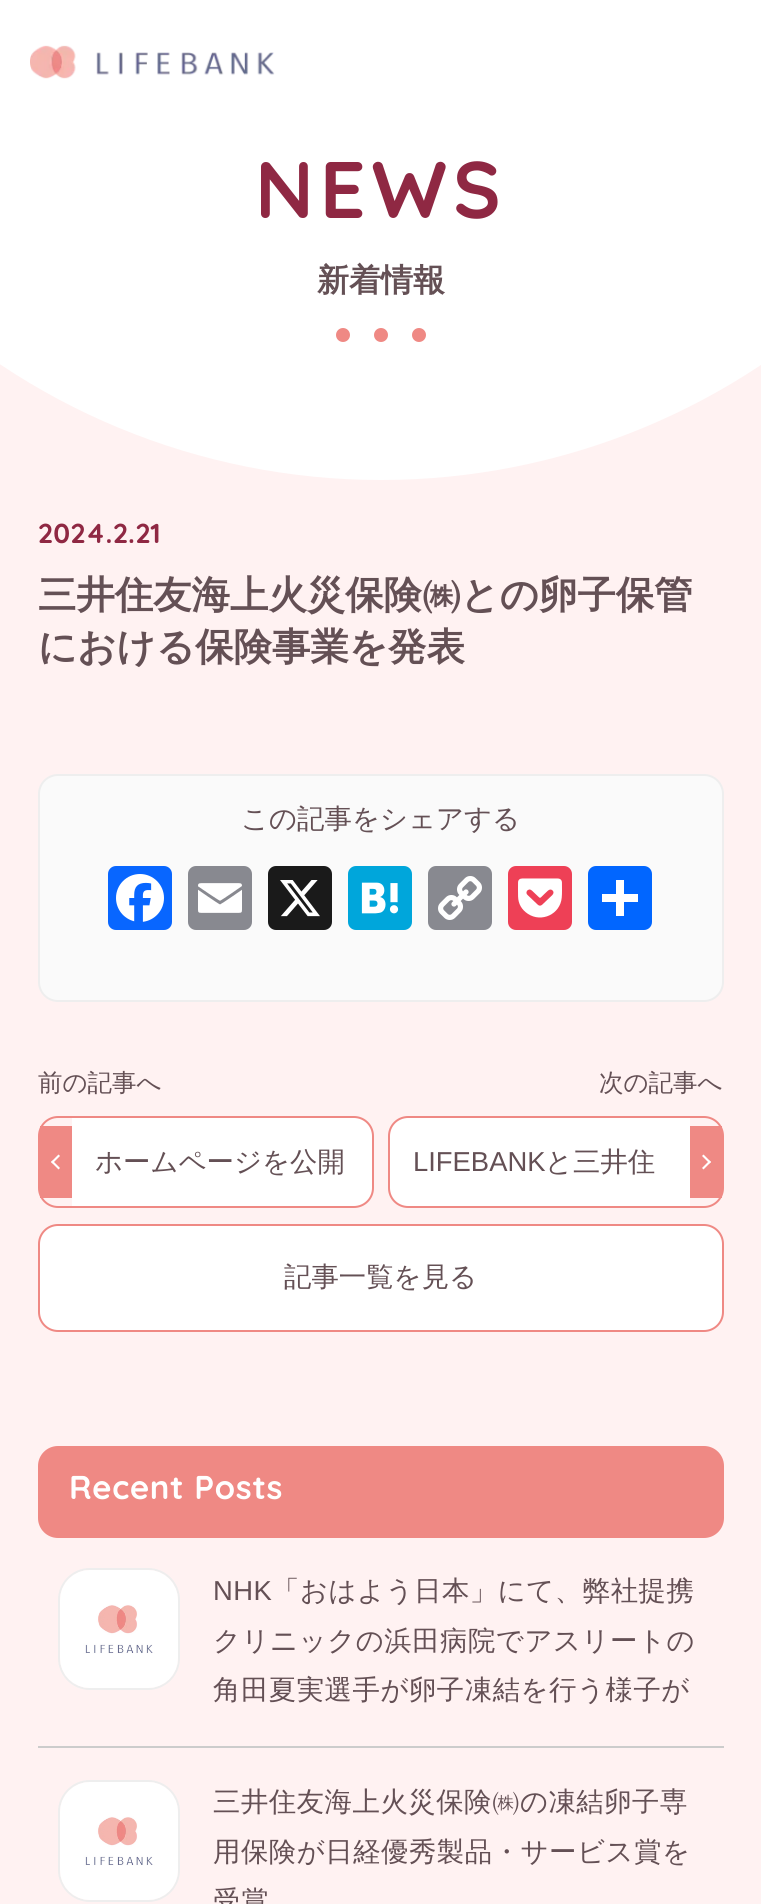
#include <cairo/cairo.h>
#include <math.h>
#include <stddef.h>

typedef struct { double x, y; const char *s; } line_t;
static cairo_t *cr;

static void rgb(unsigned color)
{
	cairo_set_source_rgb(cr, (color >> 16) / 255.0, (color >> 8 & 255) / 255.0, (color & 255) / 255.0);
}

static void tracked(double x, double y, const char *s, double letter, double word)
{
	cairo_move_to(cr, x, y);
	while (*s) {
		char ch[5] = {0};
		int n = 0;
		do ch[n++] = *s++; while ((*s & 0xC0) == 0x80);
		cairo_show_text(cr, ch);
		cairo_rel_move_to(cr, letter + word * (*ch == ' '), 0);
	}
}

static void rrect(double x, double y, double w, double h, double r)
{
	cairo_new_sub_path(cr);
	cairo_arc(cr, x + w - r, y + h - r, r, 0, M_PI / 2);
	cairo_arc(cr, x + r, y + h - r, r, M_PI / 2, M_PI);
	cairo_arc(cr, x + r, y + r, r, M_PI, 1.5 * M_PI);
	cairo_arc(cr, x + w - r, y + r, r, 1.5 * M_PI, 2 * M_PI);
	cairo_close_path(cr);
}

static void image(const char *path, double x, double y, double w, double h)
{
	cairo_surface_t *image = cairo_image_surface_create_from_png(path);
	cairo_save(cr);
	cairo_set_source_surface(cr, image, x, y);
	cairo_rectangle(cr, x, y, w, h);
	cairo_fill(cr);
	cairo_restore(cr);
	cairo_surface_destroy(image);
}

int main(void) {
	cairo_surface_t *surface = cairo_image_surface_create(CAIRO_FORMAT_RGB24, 761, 1904);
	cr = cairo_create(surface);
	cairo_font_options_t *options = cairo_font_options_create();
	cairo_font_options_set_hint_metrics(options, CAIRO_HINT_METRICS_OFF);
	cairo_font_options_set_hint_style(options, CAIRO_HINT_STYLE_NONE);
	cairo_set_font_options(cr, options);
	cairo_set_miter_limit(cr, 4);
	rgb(0xfff2f2);
	cairo_paint(cr);
	rgb(0xffffff);
	rrect(-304, -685, 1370, 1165, 685);
	cairo_fill(cr);
	image("img/1.png", 30, 45, 245, 34);
	rgb(0xef8984);
	cairo_arc(cr, 381, 335, 7, 0, 2 * M_PI);
	cairo_fill(cr);
	cairo_arc(cr, 343, 335, 7, 0, 2 * M_PI);
	cairo_fill(cr);
	cairo_arc(cr, 419, 335, 7, 0, 2 * M_PI);
	cairo_fill(cr);
	rgb(0xfafafa);
	rrect(39, 775, 684, 226, 19);
	cairo_fill_preserve(cr);
	rgb(0xeeeeee);
	cairo_stroke(cr);
	rgb(0x0866ff);
	rrect(108, 866, 64, 64, 8);
	cairo_fill(cr);
	image("img/2.png", 116, 874, 48, 48);
	rgb(0x888990);
	rrect(188, 866, 64, 64, 8);
	cairo_fill(cr);
	image("img/3.png", 198, 883, 44, 30);
	rgb(0x1a1a1a);
	rrect(268, 866, 64, 64, 8);
	cairo_fill(cr);
	image("img/4.png", 280, 880, 40, 37);
	rgb(0x00a6db);
	rrect(348, 866, 64, 64, 8);
	cairo_fill(cr);
	image("img/5.png", 361, 882, 38, 32);
	rgb(0x888990);
	rrect(428, 866, 64, 64, 8);
	cairo_fill(cr);
	image("img/6.png", 438, 876, 44, 44);
	rgb(0xee4056);
	rrect(508, 866, 64, 64, 8);
	cairo_fill(cr);
	image("img/7.png", 518, 878, 44, 40);
	rgb(0x0166ff);
	rrect(588, 866, 64, 64, 8);
	cairo_fill(cr);
	rgb(0xffffff);
	cairo_rectangle(cr, 616, 880, 8, 36);
	cairo_fill(cr);
	cairo_rectangle(cr, 602, 894, 36, 8);
	cairo_fill(cr);
	cairo_new_path(cr);
	cairo_move_to(cr, 72, 1118);
	cairo_line_to(cr, 354, 1118);
	cairo_curve_to(cr, 364, 1118, 372, 1126, 372, 1136);
	cairo_line_to(cr, 372, 1188);
	cairo_curve_to(cr, 372, 1198, 364, 1206, 354, 1206);
	cairo_line_to(cr, 72, 1206);
	cairo_close_path(cr);
	cairo_fill(cr);
	rrect(39, 1117, 334, 90, 19);
	rgb(0xef8984);
	cairo_stroke(cr);
	cairo_rectangle(cr, 40, 1126, 32, 72);
	cairo_fill(cr);
	rgb(0xffffff);
	cairo_new_path(cr);
	cairo_move_to(cr, 60, 1168);
	cairo_line_to(cr, 58.5, 1169.5);
	cairo_line_to(cr, 51, 1162);
	cairo_line_to(cr, 52.5, 1160.5);
	cairo_close_path(cr);
	cairo_fill(cr);
	cairo_new_path(cr);
	cairo_move_to(cr, 60, 1156);
	cairo_line_to(cr, 52.5, 1163.5);
	cairo_line_to(cr, 51, 1162);
	cairo_line_to(cr, 58.5, 1154.5);
	cairo_close_path(cr);
	cairo_fill(cr);
	cairo_new_path(cr);
	cairo_move_to(cr, 408, 1118);
	cairo_line_to(cr, 690, 1118);
	cairo_line_to(cr, 690, 1206);
	cairo_line_to(cr, 408, 1206);
	cairo_curve_to(cr, 398, 1206, 390, 1198, 390, 1188);
	cairo_line_to(cr, 390, 1136);
	cairo_curve_to(cr, 390, 1126, 398, 1118, 408, 1118);
	cairo_close_path(cr);
	cairo_fill(cr);
	rrect(389, 1117, 334, 90, 19);
	rgb(0xef8984);
	cairo_stroke(cr);
	cairo_rectangle(cr, 690, 1126, 32, 72);
	cairo_fill(cr);
	rgb(0xffffff);
	cairo_new_path(cr);
	cairo_move_to(cr, 702, 1156);
	cairo_line_to(cr, 703.5, 1154.5);
	cairo_line_to(cr, 711, 1162);
	cairo_line_to(cr, 709.5, 1163.5);
	cairo_close_path(cr);
	cairo_fill(cr);
	cairo_new_path(cr);
	cairo_move_to(cr, 702, 1168);
	cairo_line_to(cr, 709.5, 1160.5);
	cairo_line_to(cr, 711, 1162);
	cairo_line_to(cr, 703.5, 1169.5);
	cairo_close_path(cr);
	cairo_fill(cr);
	rrect(39, 1225, 684, 106, 19);
	cairo_fill_preserve(cr);
	rgb(0xef8984);
	cairo_stroke(cr);
	rrect(38, 1446, 686, 92, 20);
	cairo_fill(cr);
	rgb(0xcccccc);
	cairo_rectangle(cr, 38, 1746, 686, 2);
	cairo_fill(cr);
	rrect(59, 1569, 120, 120, 31);
	rgb(0xeeeeee);
	cairo_stroke(cr);
	image("img/8.png", 60, 1570, 118, 118);
	rrect(59, 1781, 120, 120, 31);
	cairo_stroke(cr);
	image("img/8.png", 60, 1782, 118, 118);
	cairo_select_font_face(cr, "Quicksand", CAIRO_FONT_SLANT_NORMAL, CAIRO_FONT_WEIGHT_BOLD);
	cairo_set_font_size(cr, 80);
	rgb(0x8f2843);
	tracked(255, 218, "NEWS", 6, 0);
	cairo_select_font_face(cr, "WenQuanYi Zen Hei", CAIRO_FONT_SLANT_NORMAL, CAIRO_FONT_WEIGHT_BOLD);
	cairo_set_font_size(cr, 32);
	rgb(0x645055);
	cairo_move_to(cr, 317, 291);
	cairo_show_text(cr, "新着情報");
	cairo_select_font_face(cr, "Quicksand", CAIRO_FONT_SLANT_NORMAL, CAIRO_FONT_WEIGHT_BOLD);
	cairo_set_font_size(cr, 27.4);
	rgb(0x8f2843);
	tracked(38, 543, "2024.2.21", 0.5, 0);
	cairo_select_font_face(cr, "WenQuanYi Zen Hei", CAIRO_FONT_SLANT_NORMAL, CAIRO_FONT_WEIGHT_BOLD);
	cairo_set_font_size(cr, 38.4);
	rgb(0x645055);
	cairo_move_to(cr, 38, 608);
	cairo_show_text(cr, "三井住友海上火災保険㈱との卵子保管");
	cairo_move_to(cr, 38, 660);
	cairo_show_text(cr, "における保険事業を発表");
	cairo_select_font_face(cr, "WenQuanYi Zen Hei Medium", CAIRO_FONT_SLANT_NORMAL, CAIRO_FONT_WEIGHT_NORMAL);
	cairo_set_font_size(cr, 27.4);
	cairo_move_to(cr, 241, 828);
	cairo_show_text(cr, "この記事をシェアする");
	cairo_set_font_size(cr, 24.5);
	cairo_move_to(cr, 38, 1091);
	cairo_show_text(cr, "前の記事へ");
	cairo_set_font_size(cr, 27.4);
	cairo_move_to(cr, 95, 1171);
	cairo_show_text(cr, "ホームページを公開");
	cairo_set_font_size(cr, 24.5);
	cairo_move_to(cr, 599, 1091);
	cairo_show_text(cr, "次の記事へ");
	cairo_select_font_face(cr, "Liberation Sans", CAIRO_FONT_SLANT_NORMAL, CAIRO_FONT_WEIGHT_NORMAL);
	cairo_set_font_size(cr, 27.4);
	cairo_move_to(cr, 413, 1171);
	cairo_show_text(cr, "LIFEBANK");
	cairo_select_font_face(cr, "WenQuanYi Zen Hei Medium", CAIRO_FONT_SLANT_NORMAL, CAIRO_FONT_WEIGHT_NORMAL);
	cairo_move_to(cr, 545, 1171);
	cairo_show_text(cr, "と三井住");
	cairo_move_to(cr, 284, 1286);
	cairo_show_text(cr, "記事一覧を見る");
	cairo_select_font_face(cr, "Quicksand", CAIRO_FONT_SLANT_NORMAL, CAIRO_FONT_WEIGHT_BOLD);
	cairo_set_font_size(cr, 33);
	rgb(0xffffff);
	tracked(69, 1499, "Recent Posts", 0.7, 0);
	cairo_select_font_face(cr, "Liberation Sans", CAIRO_FONT_SLANT_NORMAL, CAIRO_FONT_WEIGHT_NORMAL);
	cairo_set_font_size(cr, 27.4);
	rgb(0x645055);
	tracked(213, 1600, "NHK", 0.5, 0);
	cairo_select_font_face(cr, "WenQuanYi Zen Hei Medium", CAIRO_FONT_SLANT_NORMAL, CAIRO_FONT_WEIGHT_NORMAL);
	{
		static const line_t items[] = {
			{272, 1600, "「おはよう日本」にて、弊社提携"},
			{213, 1650, "クリニックの浜田病院でアスリートの"},
			{213, 1699, "角田夏実選手が卵子凍結を行う様子が"},
			{213, 1811, "三井住友海上火災保険㈱の凍結卵子専"},
			{213, 1861, "用保険が日経優秀製品・サービス賞を"},
			{213, 1910, "受賞"},
		};
		for (size_t i = 0; i < sizeof items / sizeof *items; i++) {
			tracked(items[i].x, items[i].y, items[i].s, 0.5, 0);
		}
	}
	cairo_surface_write_to_png(surface, "page.png");
	cairo_font_options_destroy(options);
	cairo_destroy(cr);
	cairo_surface_destroy(surface);
	return 0;
}
